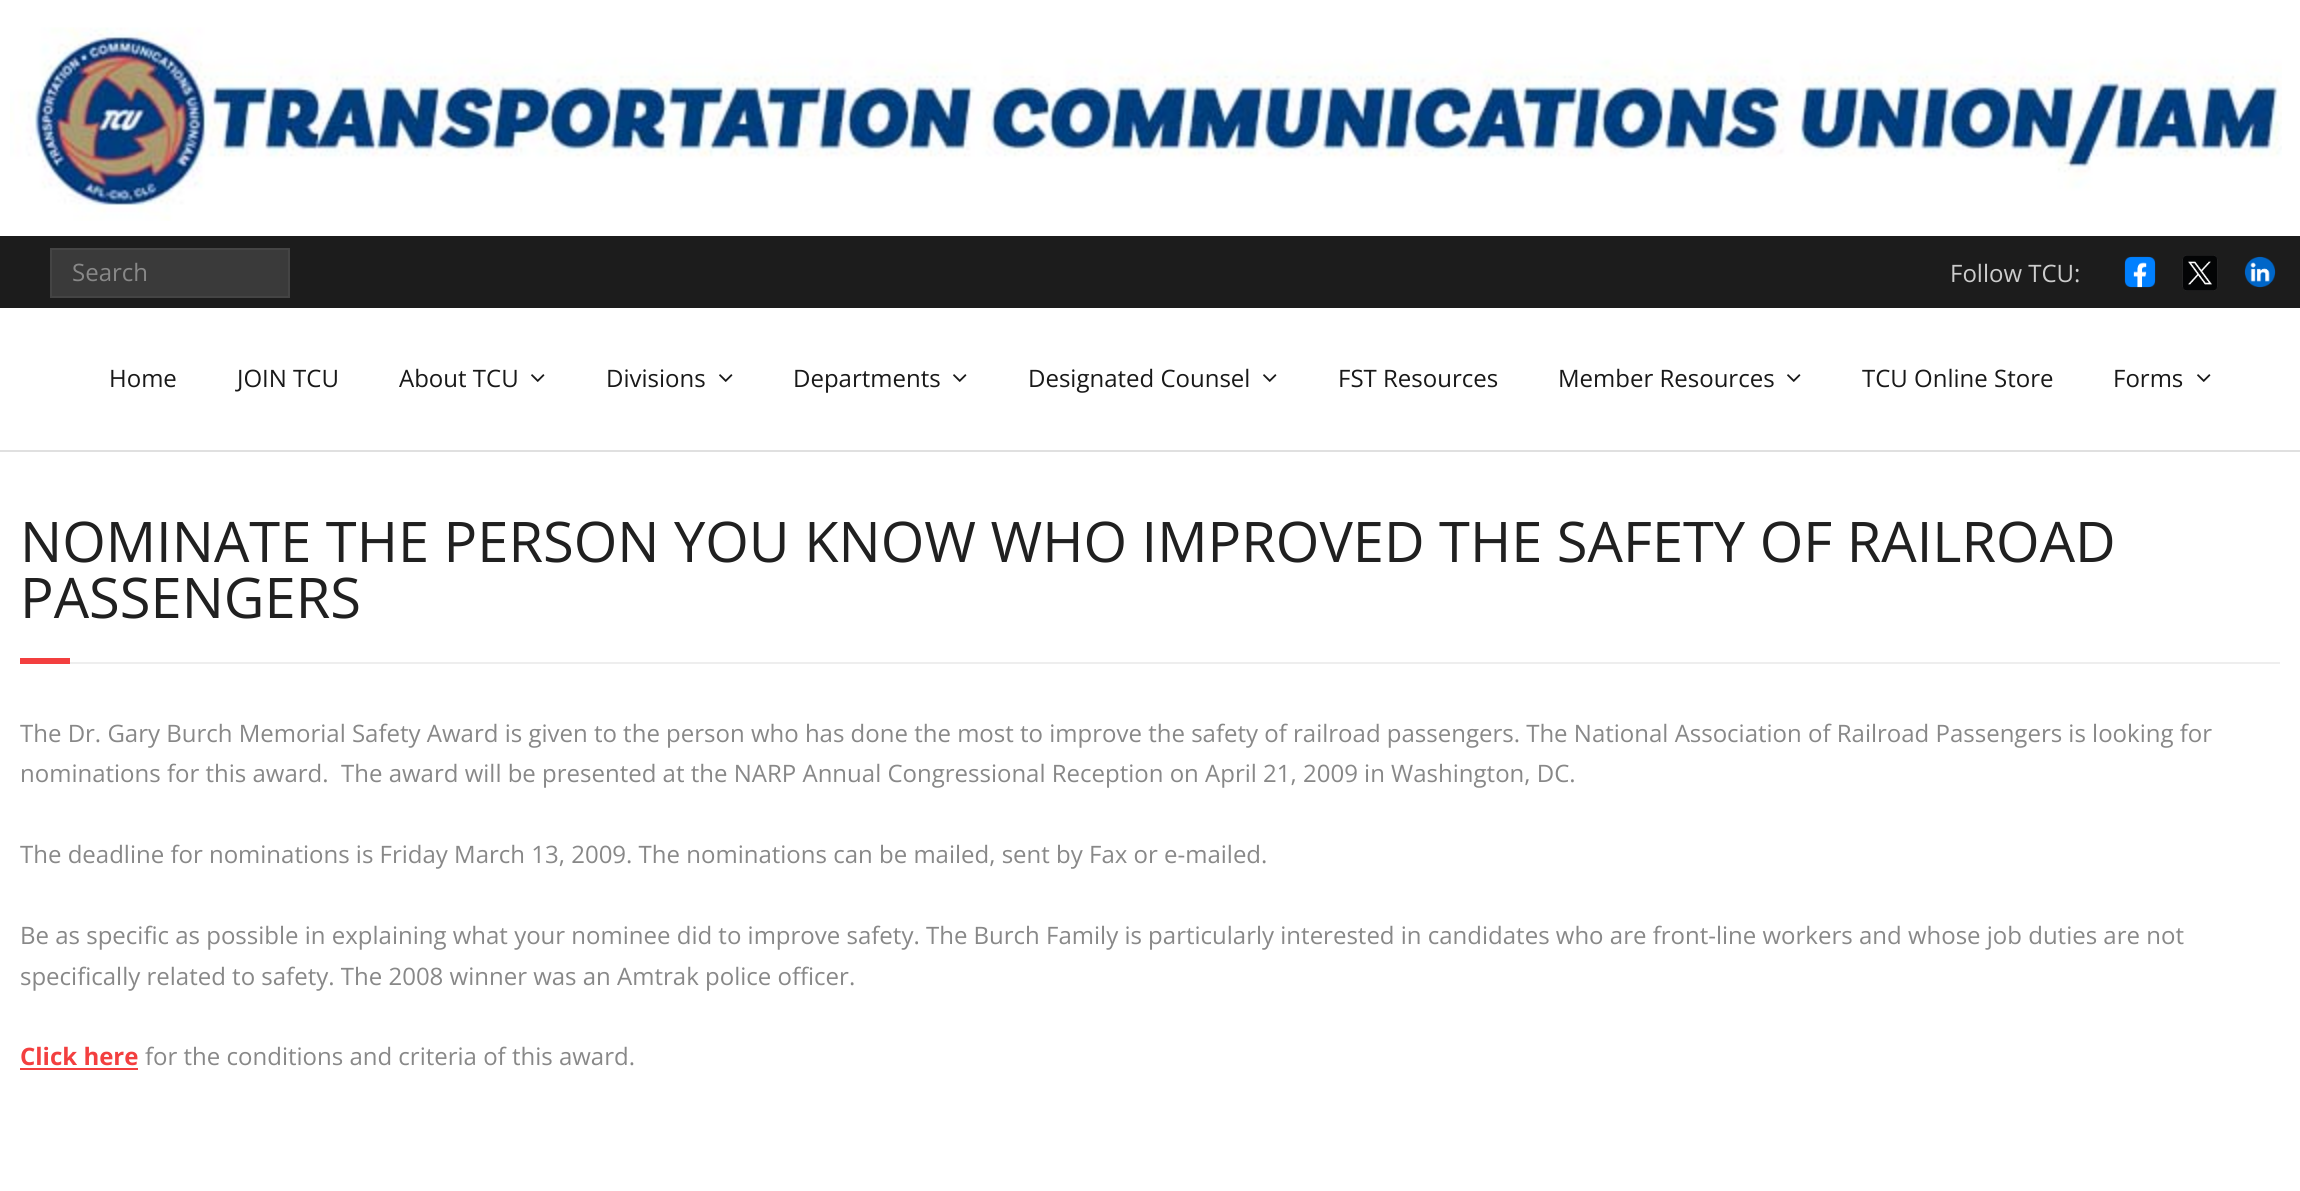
#include <cairo/cairo.h>
#include <math.h>
#include <stddef.h>

typedef struct { double x, y; const char *s; } line_t;
typedef struct { double x, y, w, h; unsigned color; } box_t;
static cairo_t *cr;

static void rgb(unsigned color)
{
	cairo_set_source_rgb(cr, (color >> 16) / 255.0, (color >> 8 & 255) / 255.0, (color & 255) / 255.0);
}

static void image(const char *path, double x, double y, double w, double h)
{
	cairo_surface_t *image = cairo_image_surface_create_from_png(path);
	cairo_save(cr);
	cairo_set_source_surface(cr, image, x, y);
	cairo_rectangle(cr, x, y, w, h);
	cairo_fill(cr);
	cairo_restore(cr);
	cairo_surface_destroy(image);
}

int main(void) {
	cairo_surface_t *surface = cairo_image_surface_create(CAIRO_FORMAT_RGB24, 2300, 1191);
	cr = cairo_create(surface);
	cairo_font_options_t *options = cairo_font_options_create();
	cairo_font_options_set_hint_metrics(options, CAIRO_HINT_METRICS_OFF);
	cairo_font_options_set_hint_style(options, CAIRO_HINT_STYLE_NONE);
	cairo_set_font_options(cr, options);
	cairo_set_miter_limit(cr, 4);
	rgb(0xffffff);
	cairo_paint(cr);
	image("img/1.png", 10, 27, 2272, 194);
	rgb(0x1c1c1c);
	cairo_rectangle(cr, 0, 236, 2300, 72);
	cairo_fill(cr);
	rgb(0x3a3a3a);
	cairo_rectangle(cr, 51, 249, 238, 48);
	cairo_fill_preserve(cr);
	rgb(0x444444);
	cairo_stroke(cr);
	image("img/2.png", 2124, 256, 32, 32);
	image("img/3.png", 2182, 255, 36, 36);
	image("img/4.png", 2244, 256, 32, 32);
	rgb(0xe0e0e0);
	cairo_rectangle(cr, 0, 450, 2300, 2);
	cairo_fill(cr);
	image("img/5.png", 531, 374, 14, 8);
	image("img/5.png", 719, 374, 14, 8);
	image("img/5.png", 953, 374, 14, 8);
	image("img/5.png", 1263, 374, 14, 8);
	image("img/5.png", 1787, 374, 14, 8);
	image("img/5.png", 2197, 374, 14, 8);
	{
		static const box_t items[] = {
			{20, 658, 50, 6, 0xf33f3f},
			{70, 662, 2210, 2, 0xeeeeee},
			{20, 1068, 118, 2, 0xf33f3f},
		};
		for (size_t i = 0; i < sizeof items / sizeof *items; i++) {
			rgb(items[i].color);
			cairo_rectangle(cr, items[i].x, items[i].y, items[i].w, items[i].h);
			cairo_fill(cr);
		}
	}
	cairo_select_font_face(cr, "Open Sans", CAIRO_FONT_SLANT_NORMAL, CAIRO_FONT_WEIGHT_NORMAL);
	cairo_set_font_size(cr, 24);
	rgb(0x888888);
	cairo_move_to(cr, 72, 281);
	cairo_show_text(cr, "Search");
	rgb(0xcccccc);
	cairo_move_to(cr, 1950, 282);
	cairo_show_text(cr, "Follow TCU:");
	rgb(0x191919);
	{
		static const line_t items[] = {
			{109, 387, "Home"},
			{237, 387, "JOIN TCU"},
			{399, 387, "About TCU"},
			{606, 387, "Divisions"},
			{793, 387, "Departments"},
			{1028, 387, "Designated Counsel"},
			{1338, 387, "FST Resources"},
			{1558, 387, "Member Resources"},
			{1862, 387, "TCU Online Store"},
			{2113, 387, "Forms"},
		};
		for (size_t i = 0; i < sizeof items / sizeof *items; i++) {
			cairo_move_to(cr, items[i].x, items[i].y);
			cairo_show_text(cr, items[i].s);
		}
	}
	cairo_set_font_size(cr, 56);
	rgb(0x202020);
	cairo_move_to(cr, 20, 562);
	cairo_show_text(cr, "NOMINATE THE PERSON YOU KNOW WHO IMPROVED THE SAFETY OF RAILROAD");
	cairo_move_to(cr, 20, 618);
	cairo_show_text(cr, "PASSENGERS");
	cairo_set_font_size(cr, 24);
	rgb(0x888888);
	{
		static const line_t items[] = {
			{20, 742, "The Dr. Gary Burch Memorial Safety Award is given to the person who has done the most to improve the safety of railroad passengers. The National Association of Railroad Passengers is looking for"},
			{20, 782, "nominations for this award.  The award will be presented at the NARP Annual Congressional Reception on April 21, 2009 in Washington, DC."},
			{20, 863, "The deadline for nominations is Friday March 13, 2009. The nominations can be mailed, sent by Fax or e-mailed."},
			{20, 944, "Be as specific as possible in explaining what your nominee did to improve safety. The Burch Family is particularly interested in candidates who are front-line workers and whose job duties are not"},
			{20, 985, "specifically related to safety. The 2008 winner was an Amtrak police officer."},
		};
		for (size_t i = 0; i < sizeof items / sizeof *items; i++) {
			cairo_move_to(cr, items[i].x, items[i].y);
			cairo_show_text(cr, items[i].s);
		}
	}
	cairo_select_font_face(cr, "Open Sans", CAIRO_FONT_SLANT_NORMAL, CAIRO_FONT_WEIGHT_BOLD);
	rgb(0xf33f3f);
	cairo_move_to(cr, 20, 1065);
	cairo_show_text(cr, "Click here");
	cairo_select_font_face(cr, "Open Sans", CAIRO_FONT_SLANT_NORMAL, CAIRO_FONT_WEIGHT_NORMAL);
	rgb(0x888888);
	cairo_move_to(cr, 145, 1065);
	cairo_show_text(cr, "for the conditions and criteria of this award.");
	cairo_surface_write_to_png(surface, "page.png");
	cairo_font_options_destroy(options);
	cairo_destroy(cr);
	cairo_surface_destroy(surface);
	return 0;
}
